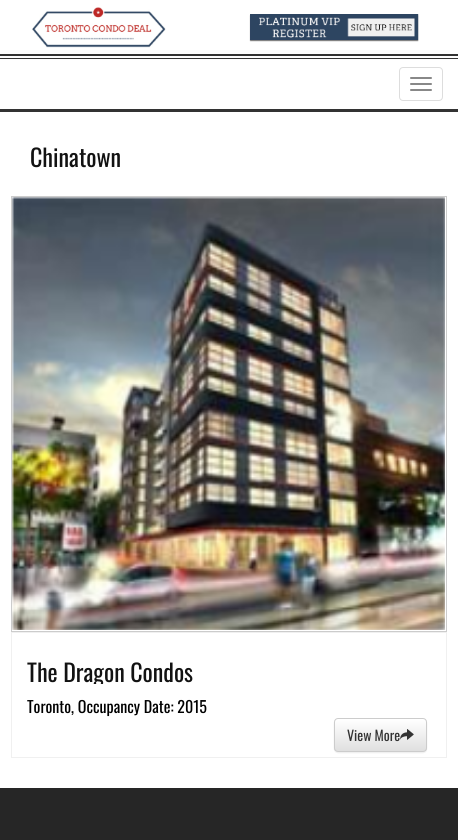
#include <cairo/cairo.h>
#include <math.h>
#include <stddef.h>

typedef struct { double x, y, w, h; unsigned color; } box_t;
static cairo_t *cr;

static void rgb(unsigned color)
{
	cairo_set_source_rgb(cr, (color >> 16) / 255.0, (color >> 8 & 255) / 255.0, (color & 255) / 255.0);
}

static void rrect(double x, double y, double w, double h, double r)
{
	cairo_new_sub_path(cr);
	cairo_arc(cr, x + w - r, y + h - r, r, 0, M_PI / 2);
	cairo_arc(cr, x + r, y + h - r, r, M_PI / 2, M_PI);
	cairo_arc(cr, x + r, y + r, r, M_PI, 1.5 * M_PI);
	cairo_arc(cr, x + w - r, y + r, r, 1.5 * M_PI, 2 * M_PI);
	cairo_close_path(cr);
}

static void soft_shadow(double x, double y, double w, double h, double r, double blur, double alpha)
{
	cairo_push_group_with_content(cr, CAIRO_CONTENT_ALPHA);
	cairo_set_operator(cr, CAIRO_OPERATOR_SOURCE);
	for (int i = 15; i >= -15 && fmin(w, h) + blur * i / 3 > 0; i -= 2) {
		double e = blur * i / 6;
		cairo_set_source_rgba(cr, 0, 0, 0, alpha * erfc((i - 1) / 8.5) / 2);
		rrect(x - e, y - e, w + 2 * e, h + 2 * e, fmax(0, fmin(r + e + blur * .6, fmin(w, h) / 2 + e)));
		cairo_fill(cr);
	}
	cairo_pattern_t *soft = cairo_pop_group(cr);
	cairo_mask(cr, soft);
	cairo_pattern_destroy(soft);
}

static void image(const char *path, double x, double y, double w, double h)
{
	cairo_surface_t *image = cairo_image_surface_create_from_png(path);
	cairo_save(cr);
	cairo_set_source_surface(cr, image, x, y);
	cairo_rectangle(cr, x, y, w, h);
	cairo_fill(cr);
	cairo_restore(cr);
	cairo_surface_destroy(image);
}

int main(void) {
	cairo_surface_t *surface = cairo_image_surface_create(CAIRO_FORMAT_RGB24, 458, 840);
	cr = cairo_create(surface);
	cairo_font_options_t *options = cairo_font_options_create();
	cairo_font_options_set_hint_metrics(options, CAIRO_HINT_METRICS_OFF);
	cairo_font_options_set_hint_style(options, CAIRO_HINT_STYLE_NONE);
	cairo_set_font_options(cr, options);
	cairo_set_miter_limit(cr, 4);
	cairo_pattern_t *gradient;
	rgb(0xffffff);
	cairo_paint(cr);
	image("img/1.png", 32, 7, 387, 41);
	{
		static const box_t items[] = {
			{0, 54, 458, 2, 0x333333},
			{0, 58, 458, 1, 0x333333},
			{0, 109, 458, 3, 0x333333},
		};
		for (size_t i = 0; i < sizeof items / sizeof *items; i++) {
			rgb(items[i].color);
			cairo_rectangle(cr, items[i].x, items[i].y, items[i].w, items[i].h);
			cairo_fill(cr);
		}
	}
	rrect(399.5, 67.5, 43, 33, 3.5);
	rgb(0xdddddd);
	cairo_set_line_width(cr, 1);
	cairo_stroke(cr);
	rgb(0x888888);
	rrect(410, 77, 22, 2, 1);
	cairo_fill(cr);
	rrect(410, 83, 22, 2, 1);
	cairo_fill(cr);
	rrect(410, 89, 22, 2, 1);
	cairo_fill(cr);
	cairo_rectangle(cr, 11.5, 196.5, 435, 435);
	rgb(0xcccccc);
	cairo_stroke(cr);
	image("img/2.png", 12, 197, 433, 433);
	cairo_rectangle(cr, 11.5, 632.5, 435, 125);
	rgb(0xf0f0f0);
	cairo_stroke(cr);
	rgb(0x000000);
	soft_shadow(334, 719, 93, 34, 4, 0.5, 0.07);
	cairo_save(cr);
	rrect(334, 718, 93, 34, 4);
	cairo_clip(cr);
	gradient = cairo_pattern_create_linear(381, 719, 381, 751);
	cairo_pattern_add_color_stop_rgba(gradient, 0, 1, 1, 1, 1);
	cairo_pattern_add_color_stop_rgba(gradient, 1, 0.878, 0.878, 0.878, 1);
	cairo_set_source(cr, gradient);
	cairo_pattern_destroy(gradient);
	cairo_rectangle(cr, 334, 719, 93, 32);
	cairo_fill(cr);
	cairo_restore(cr);
	rrect(334.5, 718.5, 92, 33, 3.5);
	rgb(0xcccccc);
	cairo_stroke(cr);
	image("img/3.png", 400, 729, 14, 11);
	rgb(0x262626);
	cairo_rectangle(cr, 0, 788, 458, 52);
	cairo_fill(cr);
	cairo_select_font_face(cr, "Oswald", CAIRO_FONT_SLANT_NORMAL, CAIRO_FONT_WEIGHT_NORMAL);
	cairo_set_font_size(cr, 24);
	rgb(0x121212);
	cairo_move_to(cr, 30, 167);
	cairo_show_text(cr, "Chinatown");
	cairo_save(cr);
	cairo_rectangle(cr, 27, 658, 404, 26);
	cairo_clip(cr);
	cairo_move_to(cr, 27, 682);
	cairo_show_text(cr, "The Dragon Condos");
	cairo_restore(cr);
	cairo_set_font_size(cr, 16);
	rgb(0x000000);
	cairo_move_to(cr, 27, 713);
	cairo_show_text(cr, "Toronto, Occupancy Date: 2015");
	cairo_set_font_size(cr, 14);
	rgb(0x333333);
	cairo_move_to(cr, 347, 741);
	cairo_show_text(cr, "View More");
	cairo_surface_write_to_png(surface, "page.png");
	cairo_font_options_destroy(options);
	cairo_destroy(cr);
	cairo_surface_destroy(surface);
	return 0;
}
